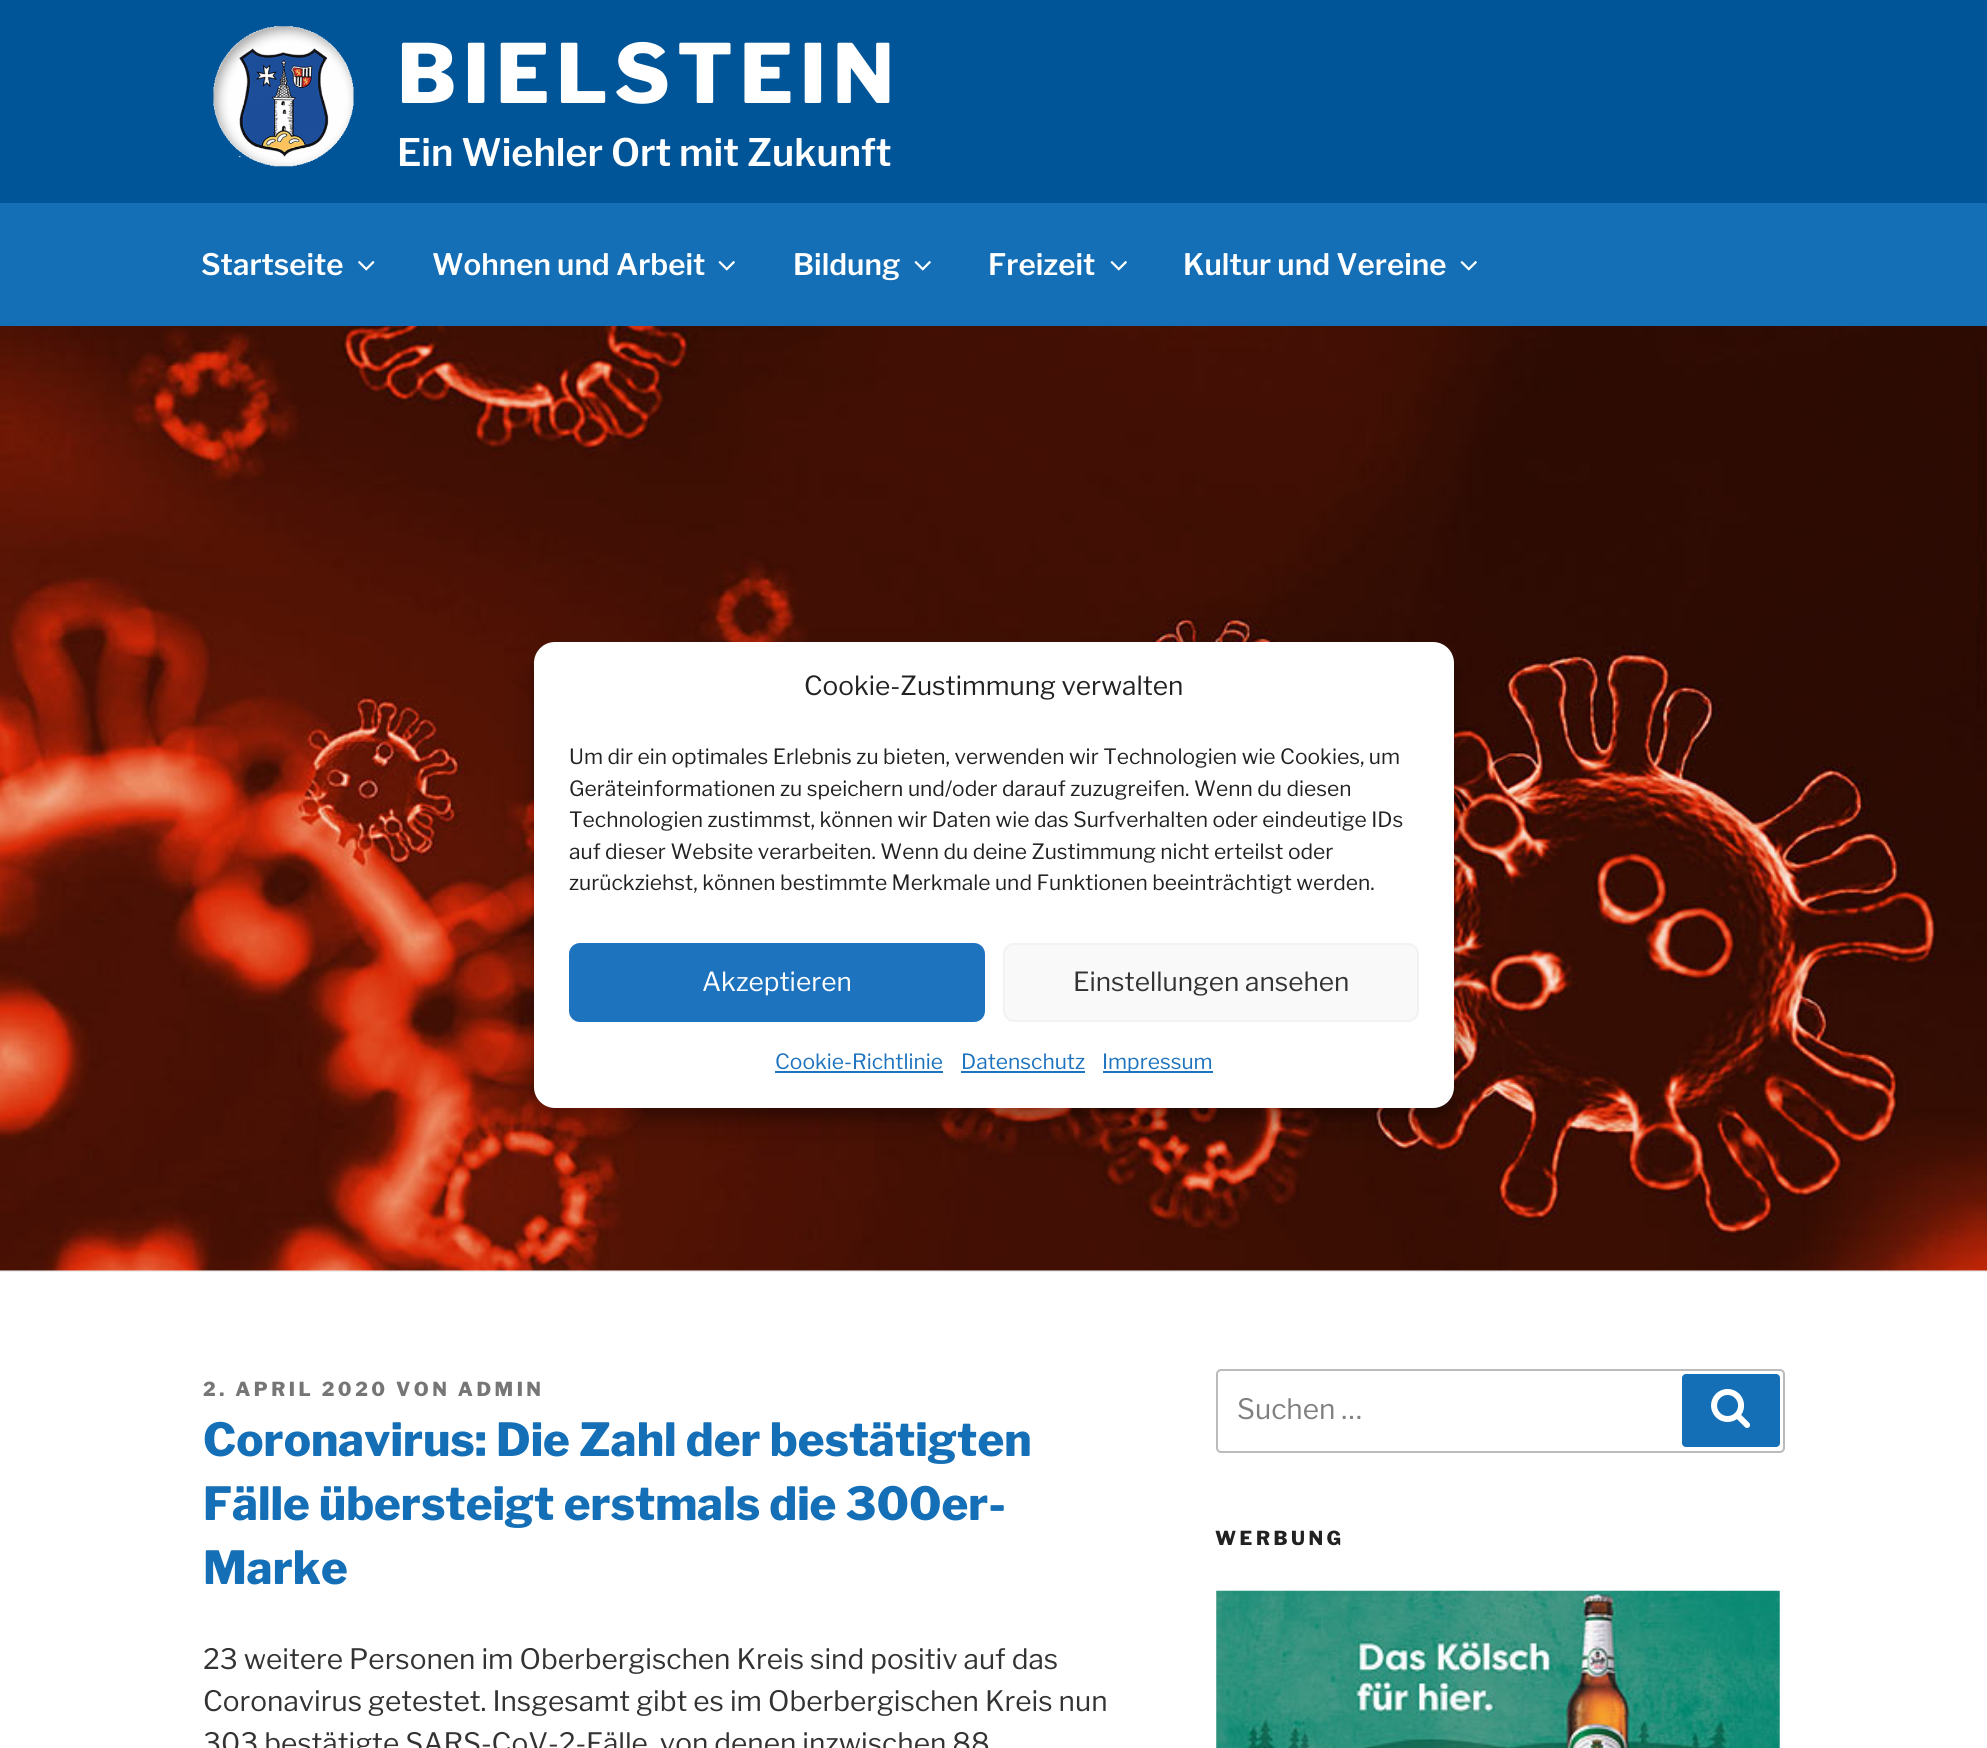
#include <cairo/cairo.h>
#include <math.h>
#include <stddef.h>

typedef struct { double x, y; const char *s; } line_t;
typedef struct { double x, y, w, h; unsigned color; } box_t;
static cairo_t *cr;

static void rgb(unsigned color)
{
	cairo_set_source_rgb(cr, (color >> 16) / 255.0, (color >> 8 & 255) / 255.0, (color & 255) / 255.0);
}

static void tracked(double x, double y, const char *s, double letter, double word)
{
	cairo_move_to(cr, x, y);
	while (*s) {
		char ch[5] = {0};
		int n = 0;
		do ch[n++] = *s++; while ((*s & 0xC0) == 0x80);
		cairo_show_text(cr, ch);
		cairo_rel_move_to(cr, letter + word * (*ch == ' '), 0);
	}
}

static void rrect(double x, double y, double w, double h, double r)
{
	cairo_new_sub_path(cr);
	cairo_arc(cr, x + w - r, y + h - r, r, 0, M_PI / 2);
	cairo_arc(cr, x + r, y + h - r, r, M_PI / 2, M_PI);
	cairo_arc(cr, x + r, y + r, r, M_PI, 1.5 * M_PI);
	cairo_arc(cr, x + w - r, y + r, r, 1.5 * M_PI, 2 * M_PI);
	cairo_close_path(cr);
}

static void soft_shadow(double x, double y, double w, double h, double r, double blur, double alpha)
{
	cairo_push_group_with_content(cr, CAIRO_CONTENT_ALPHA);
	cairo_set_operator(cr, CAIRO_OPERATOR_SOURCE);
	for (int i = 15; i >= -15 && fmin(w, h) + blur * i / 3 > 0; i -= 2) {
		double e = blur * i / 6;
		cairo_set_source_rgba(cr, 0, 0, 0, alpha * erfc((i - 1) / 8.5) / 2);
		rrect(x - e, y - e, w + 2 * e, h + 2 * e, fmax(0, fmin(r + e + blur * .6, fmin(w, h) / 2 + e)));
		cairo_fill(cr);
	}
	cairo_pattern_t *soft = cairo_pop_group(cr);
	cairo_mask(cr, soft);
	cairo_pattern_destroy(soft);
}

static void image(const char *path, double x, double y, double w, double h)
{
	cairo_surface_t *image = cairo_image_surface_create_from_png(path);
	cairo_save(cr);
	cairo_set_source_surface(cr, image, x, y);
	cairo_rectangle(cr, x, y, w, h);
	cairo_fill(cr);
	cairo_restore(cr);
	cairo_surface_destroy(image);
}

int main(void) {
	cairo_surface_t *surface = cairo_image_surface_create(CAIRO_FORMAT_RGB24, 1987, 1748);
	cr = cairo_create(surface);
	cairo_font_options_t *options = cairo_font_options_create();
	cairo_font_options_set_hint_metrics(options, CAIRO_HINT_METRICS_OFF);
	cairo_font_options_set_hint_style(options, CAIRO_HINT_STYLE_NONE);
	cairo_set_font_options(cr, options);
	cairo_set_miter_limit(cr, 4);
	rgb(0xf1f6f6);
	cairo_paint(cr);
	rgb(0x005599);
	cairo_rectangle(cr, 0, 0, 1987, 203);
	cairo_fill(cr);
	image("img/1.png", 213, 26, 141, 141);
	rgb(0x146fb6);
	cairo_rectangle(cr, 0, 203, 1987, 123);
	cairo_fill(cr);
	image("img/2.png", 358, 261, 17, 10);
	image("img/3.png", 718, 261, 17, 10);
	image("img/3.png", 914, 261, 17, 10);
	image("img/3.png", 1110, 261, 17, 10);
	image("img/3.png", 1460, 261, 17, 10);
	rgb(0xeeeeee);
	cairo_rectangle(cr, 0, 1271, 1987, 1);
	cairo_fill(cr);
	image("img/4.png", 0, 326, 1987, 945);
	rgb(0xffffff);
	cairo_rectangle(cr, 0, 1272, 1987, 476);
	cairo_fill(cr);
	rrect(1217, 1370, 567, 82, 4);
	rgb(0xbbbbbb);
	cairo_stroke(cr);
	rgb(0x146fb6);
	rrect(1682, 1374, 98, 73, 4);
	cairo_fill(cr);
	image("img/5.png", 1711, 1389, 39, 39);
	image("img/6.png", 1216, 1590, 564, 158);
	rgb(0x000000);
	soft_shadow(534, 653, 920, 465, 21, 5, 0.23);
	soft_shadow(534, 660, 920, 465, 21, 17.5, 0.19);
	rgb(0xffffff);
	rrect(534, 642, 920, 466, 21);
	cairo_fill(cr);
	rgb(0x1e73be);
	rrect(570, 944, 414, 77, 10);
	cairo_fill_preserve(cr);
	cairo_stroke(cr);
	rgb(0xf9f9f9);
	rrect(1004, 944, 414, 77, 10);
	cairo_fill_preserve(cr);
	rgb(0xf2f2f2);
	cairo_stroke(cr);
	{
		static const box_t items[] = {
			{775, 1071, 168, 2, 0x1e73be},
			{961, 1071, 124, 2, 0x1e73be},
			{1103, 1071, 110, 2, 0x1e73be},
		};
		for (size_t i = 0; i < sizeof items / sizeof *items; i++) {
			rgb(items[i].color);
			cairo_rectangle(cr, items[i].x, items[i].y, items[i].w, items[i].h);
			cairo_fill(cr);
		}
	}
	cairo_select_font_face(cr, "Libre Franklin Thin", CAIRO_FONT_SLANT_NORMAL, CAIRO_FONT_WEIGHT_NORMAL);
	cairo_set_font_size(cr, 81.25);
	rgb(0xffffff);
	tracked(397, 103, "BIELSTEIN", 6.5, 0);
	cairo_select_font_face(cr, "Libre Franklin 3 Thin", CAIRO_FONT_SLANT_NORMAL, CAIRO_FONT_WEIGHT_NORMAL);
	cairo_set_font_size(cr, 37.75);
	cairo_move_to(cr, 397, 166);
	cairo_show_text(cr, "Ein Wiehler Ort mit Zukunft");
	cairo_set_font_size(cr, 29.5);
	{
		static const line_t items[] = {
			{201, 275, "Startseite"},
			{432, 275, "Wohnen und Arbeit"},
			{793, 275, "Bildung"},
			{988, 275, "Freizeit"},
			{1183, 275, "Kultur und Vereine"},
		};
		for (size_t i = 0; i < sizeof items / sizeof *items; i++) {
			cairo_move_to(cr, items[i].x, items[i].y);
			cairo_show_text(cr, items[i].s);
		}
	}
	cairo_select_font_face(cr, "Libre Franklin Thin", CAIRO_FONT_SLANT_NORMAL, CAIRO_FONT_WEIGHT_NORMAL);
	cairo_set_font_size(cr, 19.25);
	rgb(0x767676);
	tracked(203, 1396, "2. APRIL 2020 VON ADMIN", 3.5, 0);
	cairo_set_font_size(cr, 45.5);
	rgb(0x146fb6);
	{
		static const line_t items[] = {
			{203, 1456, "Coronavirus: Die Zahl der bestätigten"},
			{203, 1520, "Fälle übersteigt erstmals die 300er-"},
			{203, 1584, "Marke"},
		};
		for (size_t i = 0; i < sizeof items / sizeof *items; i++) {
			cairo_move_to(cr, items[i].x, items[i].y);
			cairo_show_text(cr, items[i].s);
		}
	}
	cairo_select_font_face(cr, "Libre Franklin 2 Thin", CAIRO_FONT_SLANT_NORMAL, CAIRO_FONT_WEIGHT_NORMAL);
	cairo_set_font_size(cr, 28);
	rgb(0x333333);
	{
		static const line_t items[] = {
			{203, 1669, "23 weitere Personen im Oberbergischen Kreis sind positiv auf das"},
			{203, 1711, "Coronavirus getestet. Insgesamt gibt es im Oberbergischen Kreis nun"},
			{203, 1753, "303 bestätigte SARS-CoV-2-Fälle, von denen inzwischen 88"},
		};
		for (size_t i = 0; i < sizeof items / sizeof *items; i++) {
			cairo_move_to(cr, items[i].x, items[i].y);
			cairo_show_text(cr, items[i].s);
		}
	}
	rgb(0x808080);
	cairo_move_to(cr, 1237, 1419);
	cairo_show_text(cr, "Suchen …");
	cairo_select_font_face(cr, "Libre Franklin Thin", CAIRO_FONT_SLANT_NORMAL, CAIRO_FONT_WEIGHT_NORMAL);
	cairo_set_font_size(cr, 19.25);
	rgb(0x222222);
	tracked(1215, 1545, "WERBUNG", 3.5, 0);
	cairo_select_font_face(cr, "Libre Franklin 2 Thin", CAIRO_FONT_SLANT_NORMAL, CAIRO_FONT_WEIGHT_NORMAL);
	cairo_set_font_size(cr, 26.25);
	cairo_move_to(cr, 804, 695);
	cairo_show_text(cr, "Cookie-Zustimmung verwalten");
	cairo_set_font_size(cr, 21);
	{
		static const line_t items[] = {
			{569, 764, "Um dir ein optimales Erlebnis zu bieten, verwenden wir Technologien wie Cookies, um"},
			{569, 796, "Geräteinformationen zu speichern und/oder darauf zuzugreifen. Wenn du diesen"},
			{569, 827, "Technologien zustimmst, können wir Daten wie das Surfverhalten oder eindeutige IDs"},
			{569, 859, "auf dieser Website verarbeiten. Wenn du deine Zustimmung nicht erteilst oder"},
			{569, 890, "zurückziehst, können bestimmte Merkmale und Funktionen beeinträchtigt werden."},
		};
		for (size_t i = 0; i < sizeof items / sizeof *items; i++) {
			cairo_move_to(cr, items[i].x, items[i].y);
			cairo_show_text(cr, items[i].s);
		}
	}
	cairo_set_font_size(cr, 26.25);
	rgb(0xffffff);
	cairo_move_to(cr, 702, 991);
	cairo_show_text(cr, "Akzeptieren");
	rgb(0x333333);
	cairo_move_to(cr, 1073, 991);
	cairo_show_text(cr, "Einstellungen ansehen");
	cairo_set_font_size(cr, 21);
	rgb(0x1e73be);
	{
		static const line_t items[] = {
			{775, 1069, "Cookie-Richtlinie"},
			{961, 1069, "Datenschutz"},
			{1102, 1069, "Impressum"},
		};
		for (size_t i = 0; i < sizeof items / sizeof *items; i++) {
			cairo_move_to(cr, items[i].x, items[i].y);
			cairo_show_text(cr, items[i].s);
		}
	}
	cairo_surface_write_to_png(surface, "page.png");
	cairo_font_options_destroy(options);
	cairo_destroy(cr);
	cairo_surface_destroy(surface);
	return 0;
}
